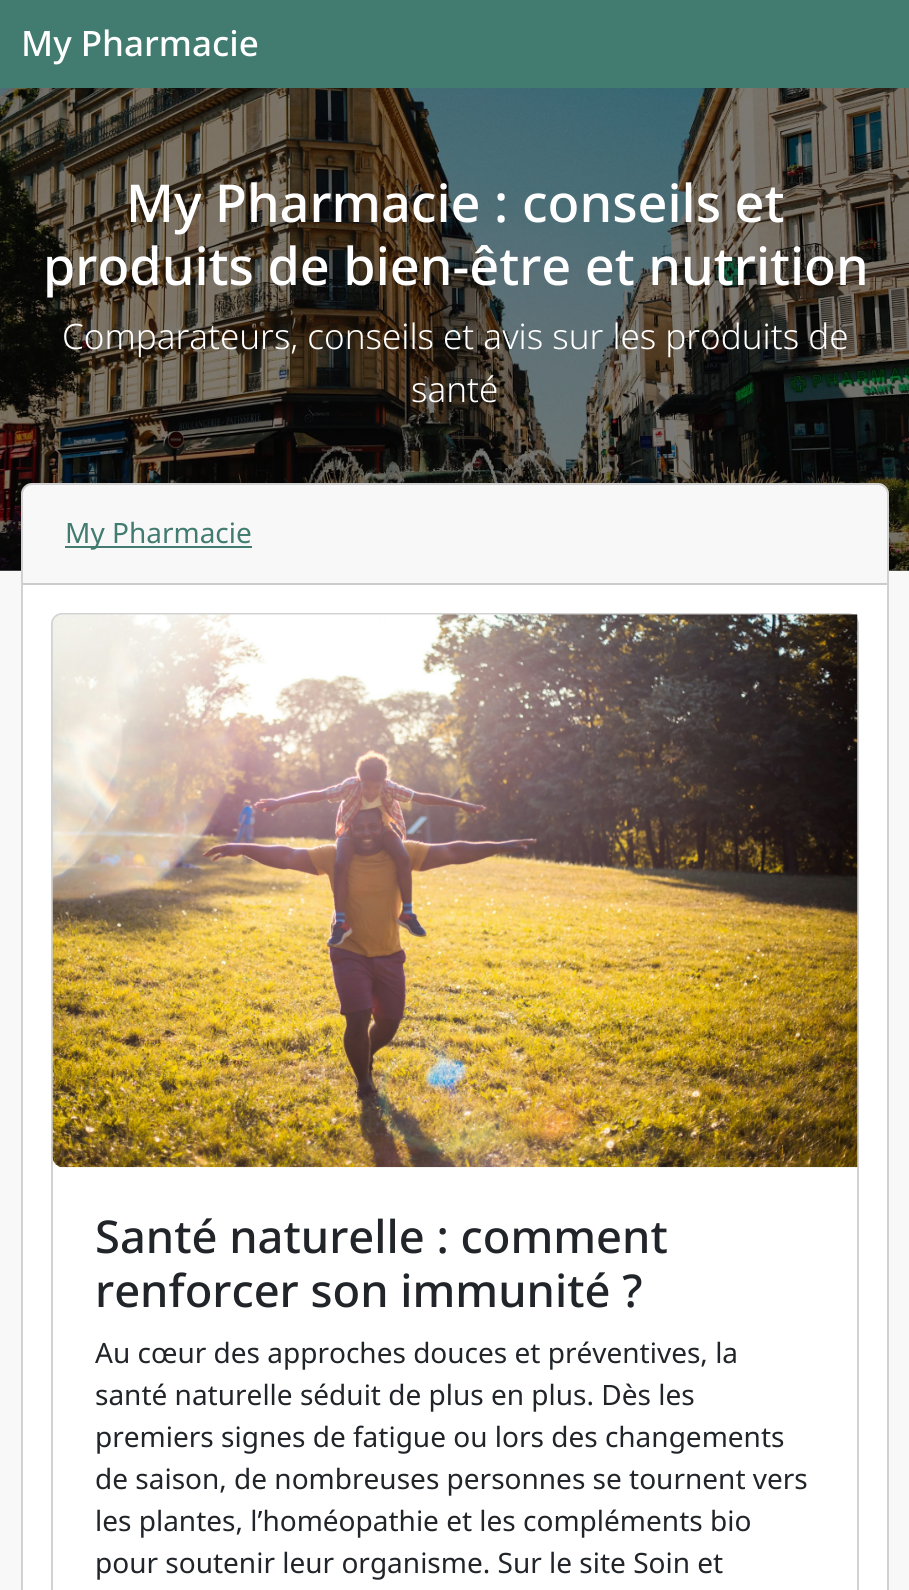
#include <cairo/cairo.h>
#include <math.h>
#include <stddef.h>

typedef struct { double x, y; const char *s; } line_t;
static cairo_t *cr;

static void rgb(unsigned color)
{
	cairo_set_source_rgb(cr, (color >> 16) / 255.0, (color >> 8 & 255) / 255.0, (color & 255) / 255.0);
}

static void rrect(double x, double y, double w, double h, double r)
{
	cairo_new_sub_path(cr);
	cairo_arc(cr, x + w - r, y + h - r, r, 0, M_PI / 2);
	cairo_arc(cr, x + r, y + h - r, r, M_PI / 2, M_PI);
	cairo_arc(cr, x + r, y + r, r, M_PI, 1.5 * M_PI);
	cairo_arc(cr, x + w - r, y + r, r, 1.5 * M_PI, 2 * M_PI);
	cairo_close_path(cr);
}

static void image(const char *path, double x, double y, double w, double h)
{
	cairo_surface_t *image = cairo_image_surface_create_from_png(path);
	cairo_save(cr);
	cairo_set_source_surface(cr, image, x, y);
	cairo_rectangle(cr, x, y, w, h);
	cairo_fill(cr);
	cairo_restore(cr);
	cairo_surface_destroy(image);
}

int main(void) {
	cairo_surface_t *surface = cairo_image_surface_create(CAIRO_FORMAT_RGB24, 909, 1590);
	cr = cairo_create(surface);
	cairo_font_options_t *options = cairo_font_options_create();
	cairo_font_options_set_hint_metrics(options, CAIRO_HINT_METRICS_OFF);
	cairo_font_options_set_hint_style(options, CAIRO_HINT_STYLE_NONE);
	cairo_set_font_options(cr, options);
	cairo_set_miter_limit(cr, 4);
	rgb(0xf8f8f8);
	cairo_paint(cr);
	rgb(0x7c7c7c);
	cairo_rectangle(cr, 0, 570, 909, 1);
	cairo_fill(cr);
	rgb(0x427b6f);
	cairo_rectangle(cr, 0, 0, 909, 88);
	cairo_fill(cr);
	image("img/1.png", 0, 88, 909, 483);
	rgb(0xffffff);
	rrect(21, 483, 868, 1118, 11);
	cairo_fill(cr);
	rrect(22, 484, 866, 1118, 10);
	cairo_set_source_rgba(cr, 0, 0, 0, 0.18);
	cairo_stroke(cr);
	cairo_set_source_rgba(cr, 0, 0, 0, 0.03);
	cairo_rectangle(cr, 23, 485, 864, 98);
	cairo_fill(cr);
	rgb(0xcccccc);
	cairo_rectangle(cr, 23, 583, 864, 2);
	cairo_fill(cr);
	rgb(0x427b6f);
	cairo_rectangle(cr, 65, 546, 187, 2);
	cairo_fill(cr);
	rrect(52, 614, 806, 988, 10);
	rgb(0xd2d2d2);
	cairo_stroke(cr);
	image("img/2.png", 52, 614, 806, 554);
	cairo_select_font_face(cr, "Noto Sans Medium", CAIRO_FONT_SLANT_NORMAL, CAIRO_FONT_WEIGHT_NORMAL);
	cairo_set_font_size(cr, 35);
	rgb(0xffffff);
	cairo_move_to(cr, 21, 56);
	cairo_show_text(cr, "My Pharmacie");
	cairo_set_font_size(cr, 52.2);
	cairo_move_to(cr, 126, 222);
	cairo_show_text(cr, "My Pharmacie : conseils et");
	cairo_move_to(cr, 43, 285);
	cairo_show_text(cr, "produits de bien-être et nutrition");
	cairo_select_font_face(cr, "Noto Sans Light", CAIRO_FONT_SLANT_NORMAL, CAIRO_FONT_WEIGHT_NORMAL);
	cairo_set_font_size(cr, 35);
	cairo_move_to(cr, 62, 349);
	cairo_show_text(cr, "Comparateurs, conseils et avis sur les produits de");
	cairo_move_to(cr, 411, 402);
	cairo_show_text(cr, "santé");
	cairo_select_font_face(cr, "Noto Sans", CAIRO_FONT_SLANT_NORMAL, CAIRO_FONT_WEIGHT_NORMAL);
	cairo_set_font_size(cr, 28);
	rgb(0x427b6f);
	cairo_move_to(cr, 65, 543);
	cairo_show_text(cr, "My Pharmacie");
	cairo_select_font_face(cr, "Noto Sans Medium", CAIRO_FONT_SLANT_NORMAL, CAIRO_FONT_WEIGHT_NORMAL);
	cairo_set_font_size(cr, 45.25);
	rgb(0x212529);
	cairo_move_to(cr, 95, 1253);
	cairo_show_text(cr, "Santé naturelle : comment");
	cairo_move_to(cr, 95, 1307);
	cairo_show_text(cr, "renforcer son immunité ?");
	cairo_select_font_face(cr, "Noto Sans", CAIRO_FONT_SLANT_NORMAL, CAIRO_FONT_WEIGHT_NORMAL);
	cairo_set_font_size(cr, 28);
	{
		static const line_t items[] = {
			{95, 1363, "Au cœur des approches douces et préventives, la"},
			{95, 1405, "santé naturelle séduit de plus en plus. Dès les"},
			{95, 1447, "premiers signes de fatigue ou lors des changements"},
			{95, 1489, "de saison, de nombreuses personnes se tournent vers"},
			{95, 1531, "les plantes, l’homéopathie et les compléments bio"},
			{95, 1573, "pour soutenir leur organisme. Sur le site Soin et"},
		};
		for (size_t i = 0; i < sizeof items / sizeof *items; i++) {
			cairo_move_to(cr, items[i].x, items[i].y);
			cairo_show_text(cr, items[i].s);
		}
	}
	cairo_surface_write_to_png(surface, "page.png");
	cairo_font_options_destroy(options);
	cairo_destroy(cr);
	cairo_surface_destroy(surface);
	return 0;
}
